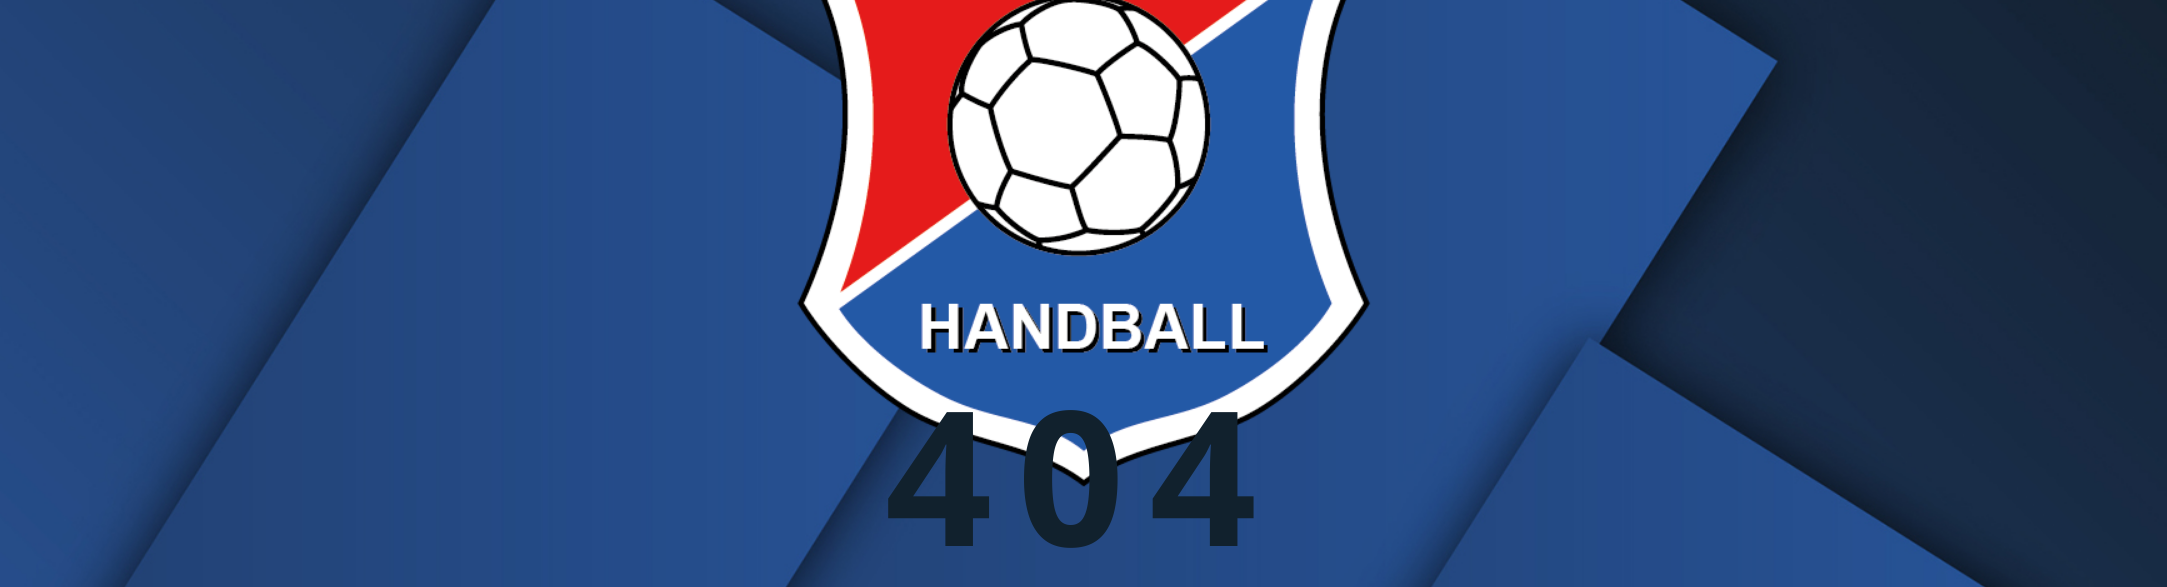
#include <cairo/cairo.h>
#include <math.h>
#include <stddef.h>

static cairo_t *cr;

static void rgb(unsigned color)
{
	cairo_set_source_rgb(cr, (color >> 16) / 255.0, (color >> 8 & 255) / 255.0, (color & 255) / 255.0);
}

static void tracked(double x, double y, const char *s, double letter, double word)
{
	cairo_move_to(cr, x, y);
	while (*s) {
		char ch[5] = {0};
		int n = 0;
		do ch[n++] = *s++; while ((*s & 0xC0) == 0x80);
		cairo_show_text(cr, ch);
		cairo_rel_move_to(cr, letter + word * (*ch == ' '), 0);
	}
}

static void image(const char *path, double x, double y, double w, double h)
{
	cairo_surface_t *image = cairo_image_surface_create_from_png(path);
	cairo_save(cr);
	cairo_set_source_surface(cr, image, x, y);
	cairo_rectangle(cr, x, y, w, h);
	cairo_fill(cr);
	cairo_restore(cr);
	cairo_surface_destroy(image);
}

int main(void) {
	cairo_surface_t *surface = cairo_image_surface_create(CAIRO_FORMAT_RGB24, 2167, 587);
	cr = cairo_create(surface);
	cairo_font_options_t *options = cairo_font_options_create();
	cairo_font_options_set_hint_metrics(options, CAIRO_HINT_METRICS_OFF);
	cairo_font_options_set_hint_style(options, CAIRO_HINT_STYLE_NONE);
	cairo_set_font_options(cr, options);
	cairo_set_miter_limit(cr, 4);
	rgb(0xffffff);
	cairo_paint(cr);
	image("img/1.png", 0, 0, 2167, 587);
	image("img/2.png", 797, 0, 574, 487);
	cairo_select_font_face(cr, "Noto Sans", CAIRO_FONT_SLANT_NORMAL, CAIRO_FONT_WEIGHT_BOLD);
	cairo_set_font_size(cr, 187.5);
	rgb(0x11212d);
	tracked(885, 546, "404", 25, 0);
	cairo_surface_write_to_png(surface, "page.png");
	cairo_font_options_destroy(options);
	cairo_destroy(cr);
	cairo_surface_destroy(surface);
	return 0;
}
